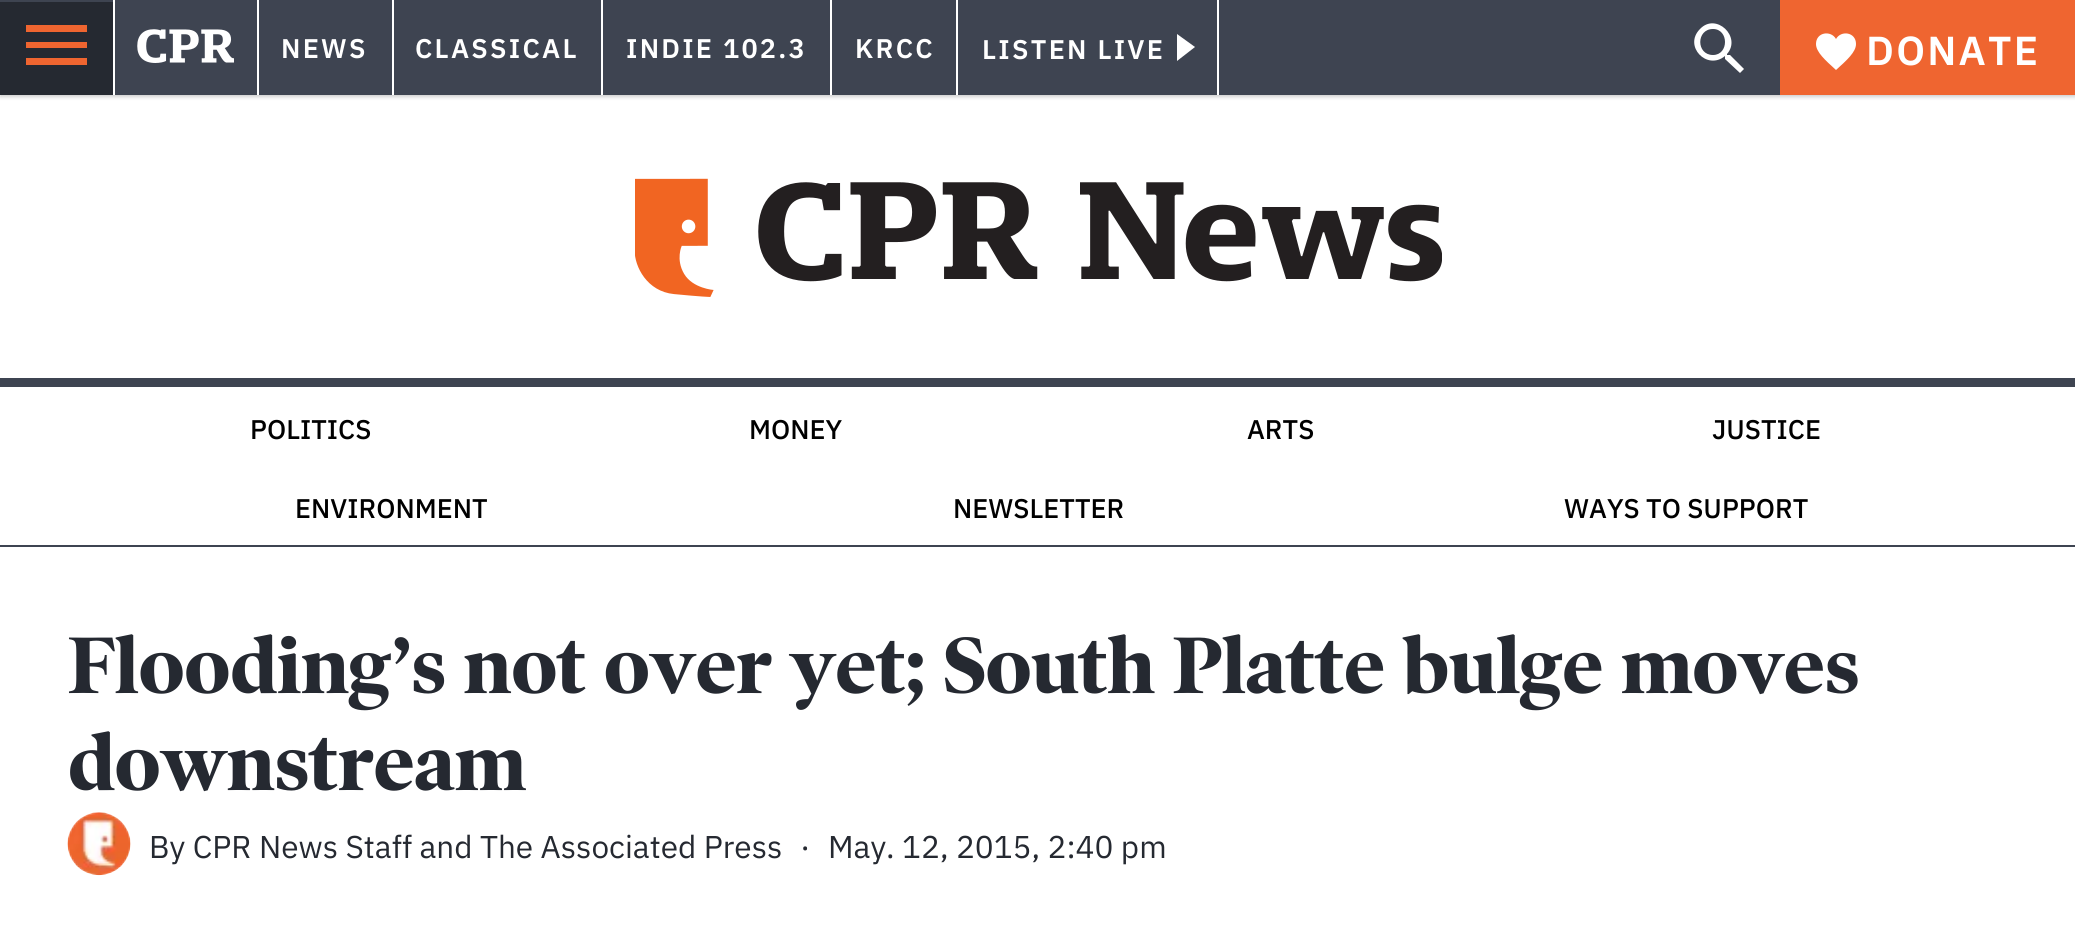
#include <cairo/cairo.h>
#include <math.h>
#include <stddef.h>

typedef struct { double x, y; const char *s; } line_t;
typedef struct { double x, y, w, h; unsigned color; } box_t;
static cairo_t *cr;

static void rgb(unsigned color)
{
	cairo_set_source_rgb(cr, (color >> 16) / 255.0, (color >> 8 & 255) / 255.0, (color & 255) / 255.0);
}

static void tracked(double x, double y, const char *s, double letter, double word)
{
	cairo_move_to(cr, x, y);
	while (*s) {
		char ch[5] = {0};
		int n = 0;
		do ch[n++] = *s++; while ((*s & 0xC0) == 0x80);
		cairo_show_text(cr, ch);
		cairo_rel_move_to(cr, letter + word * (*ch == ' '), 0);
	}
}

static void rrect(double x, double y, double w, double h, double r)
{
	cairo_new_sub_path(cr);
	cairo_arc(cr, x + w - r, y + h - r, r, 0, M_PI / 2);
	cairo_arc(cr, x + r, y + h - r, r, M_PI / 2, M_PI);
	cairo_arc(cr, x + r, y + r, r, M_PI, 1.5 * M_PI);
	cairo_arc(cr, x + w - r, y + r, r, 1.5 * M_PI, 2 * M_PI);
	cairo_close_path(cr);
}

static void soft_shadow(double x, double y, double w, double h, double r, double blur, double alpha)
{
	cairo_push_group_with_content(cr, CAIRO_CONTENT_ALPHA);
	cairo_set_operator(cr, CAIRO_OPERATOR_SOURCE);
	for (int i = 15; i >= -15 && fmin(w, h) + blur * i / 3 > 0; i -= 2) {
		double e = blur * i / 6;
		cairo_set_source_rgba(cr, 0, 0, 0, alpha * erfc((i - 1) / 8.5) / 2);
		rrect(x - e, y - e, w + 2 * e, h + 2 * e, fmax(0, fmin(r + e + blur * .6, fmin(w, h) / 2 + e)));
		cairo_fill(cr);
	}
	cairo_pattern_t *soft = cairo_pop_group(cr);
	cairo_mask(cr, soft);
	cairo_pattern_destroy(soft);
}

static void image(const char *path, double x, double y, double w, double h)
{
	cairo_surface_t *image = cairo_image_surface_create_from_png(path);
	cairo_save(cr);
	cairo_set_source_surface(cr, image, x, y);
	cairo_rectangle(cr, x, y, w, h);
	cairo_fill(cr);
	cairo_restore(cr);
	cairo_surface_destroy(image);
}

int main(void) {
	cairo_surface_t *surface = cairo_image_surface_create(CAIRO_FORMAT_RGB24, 2075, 942);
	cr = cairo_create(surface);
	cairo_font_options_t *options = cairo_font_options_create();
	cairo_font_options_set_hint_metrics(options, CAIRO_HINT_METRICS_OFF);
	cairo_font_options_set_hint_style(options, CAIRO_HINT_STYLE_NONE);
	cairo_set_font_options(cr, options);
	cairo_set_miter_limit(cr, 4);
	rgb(0xffffff);
	cairo_paint(cr);
	rgb(0x000000);
	soft_shadow(0, 2, 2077, 95, 0, 2, 0.2);
	rgb(0x3e4451);
	cairo_rectangle(cr, 0, 0, 1780, 95);
	cairo_fill(cr);
	rgb(0x252931);
	cairo_rectangle(cr, 0, 2, 113, 93);
	cairo_fill(cr);
	rgb(0xef6530);
	cairo_new_path(cr);
	cairo_move_to(cr, 26, 65);
	cairo_line_to(cr, 87, 65);
	cairo_line_to(cr, 87, 58);
	cairo_line_to(cr, 26, 58);
	cairo_close_path(cr);
	cairo_move_to(cr, 26, 48);
	cairo_line_to(cr, 87, 48);
	cairo_line_to(cr, 87, 42);
	cairo_line_to(cr, 26, 42);
	cairo_close_path(cr);
	cairo_move_to(cr, 26, 25);
	cairo_line_to(cr, 26, 32);
	cairo_line_to(cr, 87, 32);
	cairo_line_to(cr, 87, 25);
	cairo_close_path(cr);
	cairo_fill(cr);
	rgb(0xffffff);
	cairo_rectangle(cr, 257, 0, 2, 95);
	cairo_fill(cr);
	cairo_rectangle(cr, 113, 0, 2, 95);
	cairo_fill(cr);
	image("img/1.png", 137, 29, 97, 34);
	{
		static const box_t items[] = {
			{392, 0, 2, 95, 0xffffff},
			{601, 0, 2, 95, 0xffffff},
			{830, 0, 2, 95, 0xffffff},
			{956, 0, 2, 95, 0xffffff},
			{1217, 0, 2, 95, 0xffffff},
		};
		for (size_t i = 0; i < sizeof items / sizeof *items; i++) {
			rgb(items[i].color);
			cairo_rectangle(cr, items[i].x, items[i].y, items[i].w, items[i].h);
			cairo_fill(cr);
		}
	}
	cairo_new_path(cr);
	cairo_move_to(cr, 1177, 61);
	cairo_line_to(cr, 1177, 34);
	cairo_line_to(cr, 1195, 47);
	cairo_close_path(cr);
	cairo_fill(cr);
	cairo_new_path(cr);
	cairo_move_to(cr, 1713, 55);
	cairo_curve_to(cr, 1729, 55, 1729, 29, 1713, 29);
	cairo_curve_to(cr, 1696, 29, 1696, 55, 1713, 55);
	cairo_close_path(cr);
	cairo_move_to(cr, 1730, 55);
	cairo_line_to(cr, 1744, 69);
	cairo_line_to(cr, 1740, 73);
	cairo_line_to(cr, 1725, 59);
	cairo_line_to(cr, 1725, 57);
	cairo_line_to(cr, 1725, 56);
	cairo_curve_to(cr, 1707, 71, 1683, 46, 1700, 29);
	cairo_curve_to(cr, 1716, 12, 1742, 37, 1727, 54);
	cairo_line_to(cr, 1727, 55);
	cairo_close_path(cr);
	cairo_fill(cr);
	rgb(0xef6530);
	cairo_rectangle(cr, 1780, 0, 295, 95);
	cairo_fill(cr);
	rgb(0xffffff);
	cairo_new_path(cr);
	cairo_move_to(cr, 1836, 39);
	cairo_curve_to(cr, 1831, 30, 1816, 32, 1816, 44);
	cairo_curve_to(cr, 1816, 52, 1825, 60, 1836, 70);
	cairo_curve_to(cr, 1847, 60, 1856, 52, 1856, 44);
	cairo_curve_to(cr, 1856, 32, 1841, 30, 1836, 39);
	cairo_close_path(cr);
	cairo_fill(cr);
	rgb(0x3e4451);
	cairo_rectangle(cr, 0, 378, 2075, 9);
	cairo_fill(cr);
	image("img/2.png", 635, 178, 807, 119);
	cairo_rectangle(cr, 0, 545, 2075, 2);
	cairo_fill(cr);
	image("img/3.png", 67, 812, 64, 64);
	cairo_select_font_face(cr, "IBM Plex Sans SemiBold", CAIRO_FONT_SLANT_NORMAL, CAIRO_FONT_WEIGHT_NORMAL);
	cairo_set_font_size(cr, 27);
	rgb(0xffffff);
	{
		static const line_t items[] = {
			{281, 58, "NEWS"},
			{415, 58, "CLASSICAL"},
			{626, 58, "INDIE 102.3"},
			{855, 58, "KRCC"},
			{982, 59, "LISTEN LIVE"},
		};
		for (size_t i = 0; i < sizeof items / sizeof *items; i++) {
			tracked(items[i].x, items[i].y, items[i].s, 2.25, 0);
		}
	}
	cairo_set_font_size(cr, 40.5);
	tracked(1866, 65, "DONATE", 2.25, 0);
	cairo_select_font_face(cr, "IBM Plex Sans Medium", CAIRO_FONT_SLANT_NORMAL, CAIRO_FONT_WEIGHT_NORMAL);
	cairo_set_font_size(cr, 27);
	rgb(0x000000);
	{
		static const line_t items[] = {
			{250, 439, "POLITICS"},
			{749, 439, "MONEY"},
			{1247, 439, "ARTS"},
			{1712, 439, "JUSTICE"},
			{295, 518, "ENVIRONMENT"},
			{953, 518, "NEWSLETTER"},
			{1564, 518, "WAYS TO SUPPORT"},
		};
		for (size_t i = 0; i < sizeof items / sizeof *items; i++) {
			cairo_move_to(cr, items[i].x, items[i].y);
			cairo_show_text(cr, items[i].s);
		}
	}
	cairo_select_font_face(cr, "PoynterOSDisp", CAIRO_FONT_SLANT_NORMAL, CAIRO_FONT_WEIGHT_BOLD);
	cairo_set_font_size(cr, 81);
	rgb(0x252931);
	cairo_move_to(cr, 68, 693);
	cairo_show_text(cr, "Flooding’s not over yet; South Platte bulge moves");
	cairo_move_to(cr, 68, 790);
	cairo_show_text(cr, "downstream");
	cairo_select_font_face(cr, "IBM Plex Sans", CAIRO_FONT_SLANT_NORMAL, CAIRO_FONT_WEIGHT_NORMAL);
	cairo_set_font_size(cr, 31.5);
	{
		static const line_t items[] = {
			{149, 858, "By CPR News Staff and The Associated Press"},
			{800, 858, "·"},
			{828, 858, "May. 12, 2015, 2:40 pm"},
		};
		for (size_t i = 0; i < sizeof items / sizeof *items; i++) {
			cairo_move_to(cr, items[i].x, items[i].y);
			cairo_show_text(cr, items[i].s);
		}
	}
	cairo_surface_write_to_png(surface, "page.png");
	cairo_font_options_destroy(options);
	cairo_destroy(cr);
	cairo_surface_destroy(surface);
	return 0;
}
